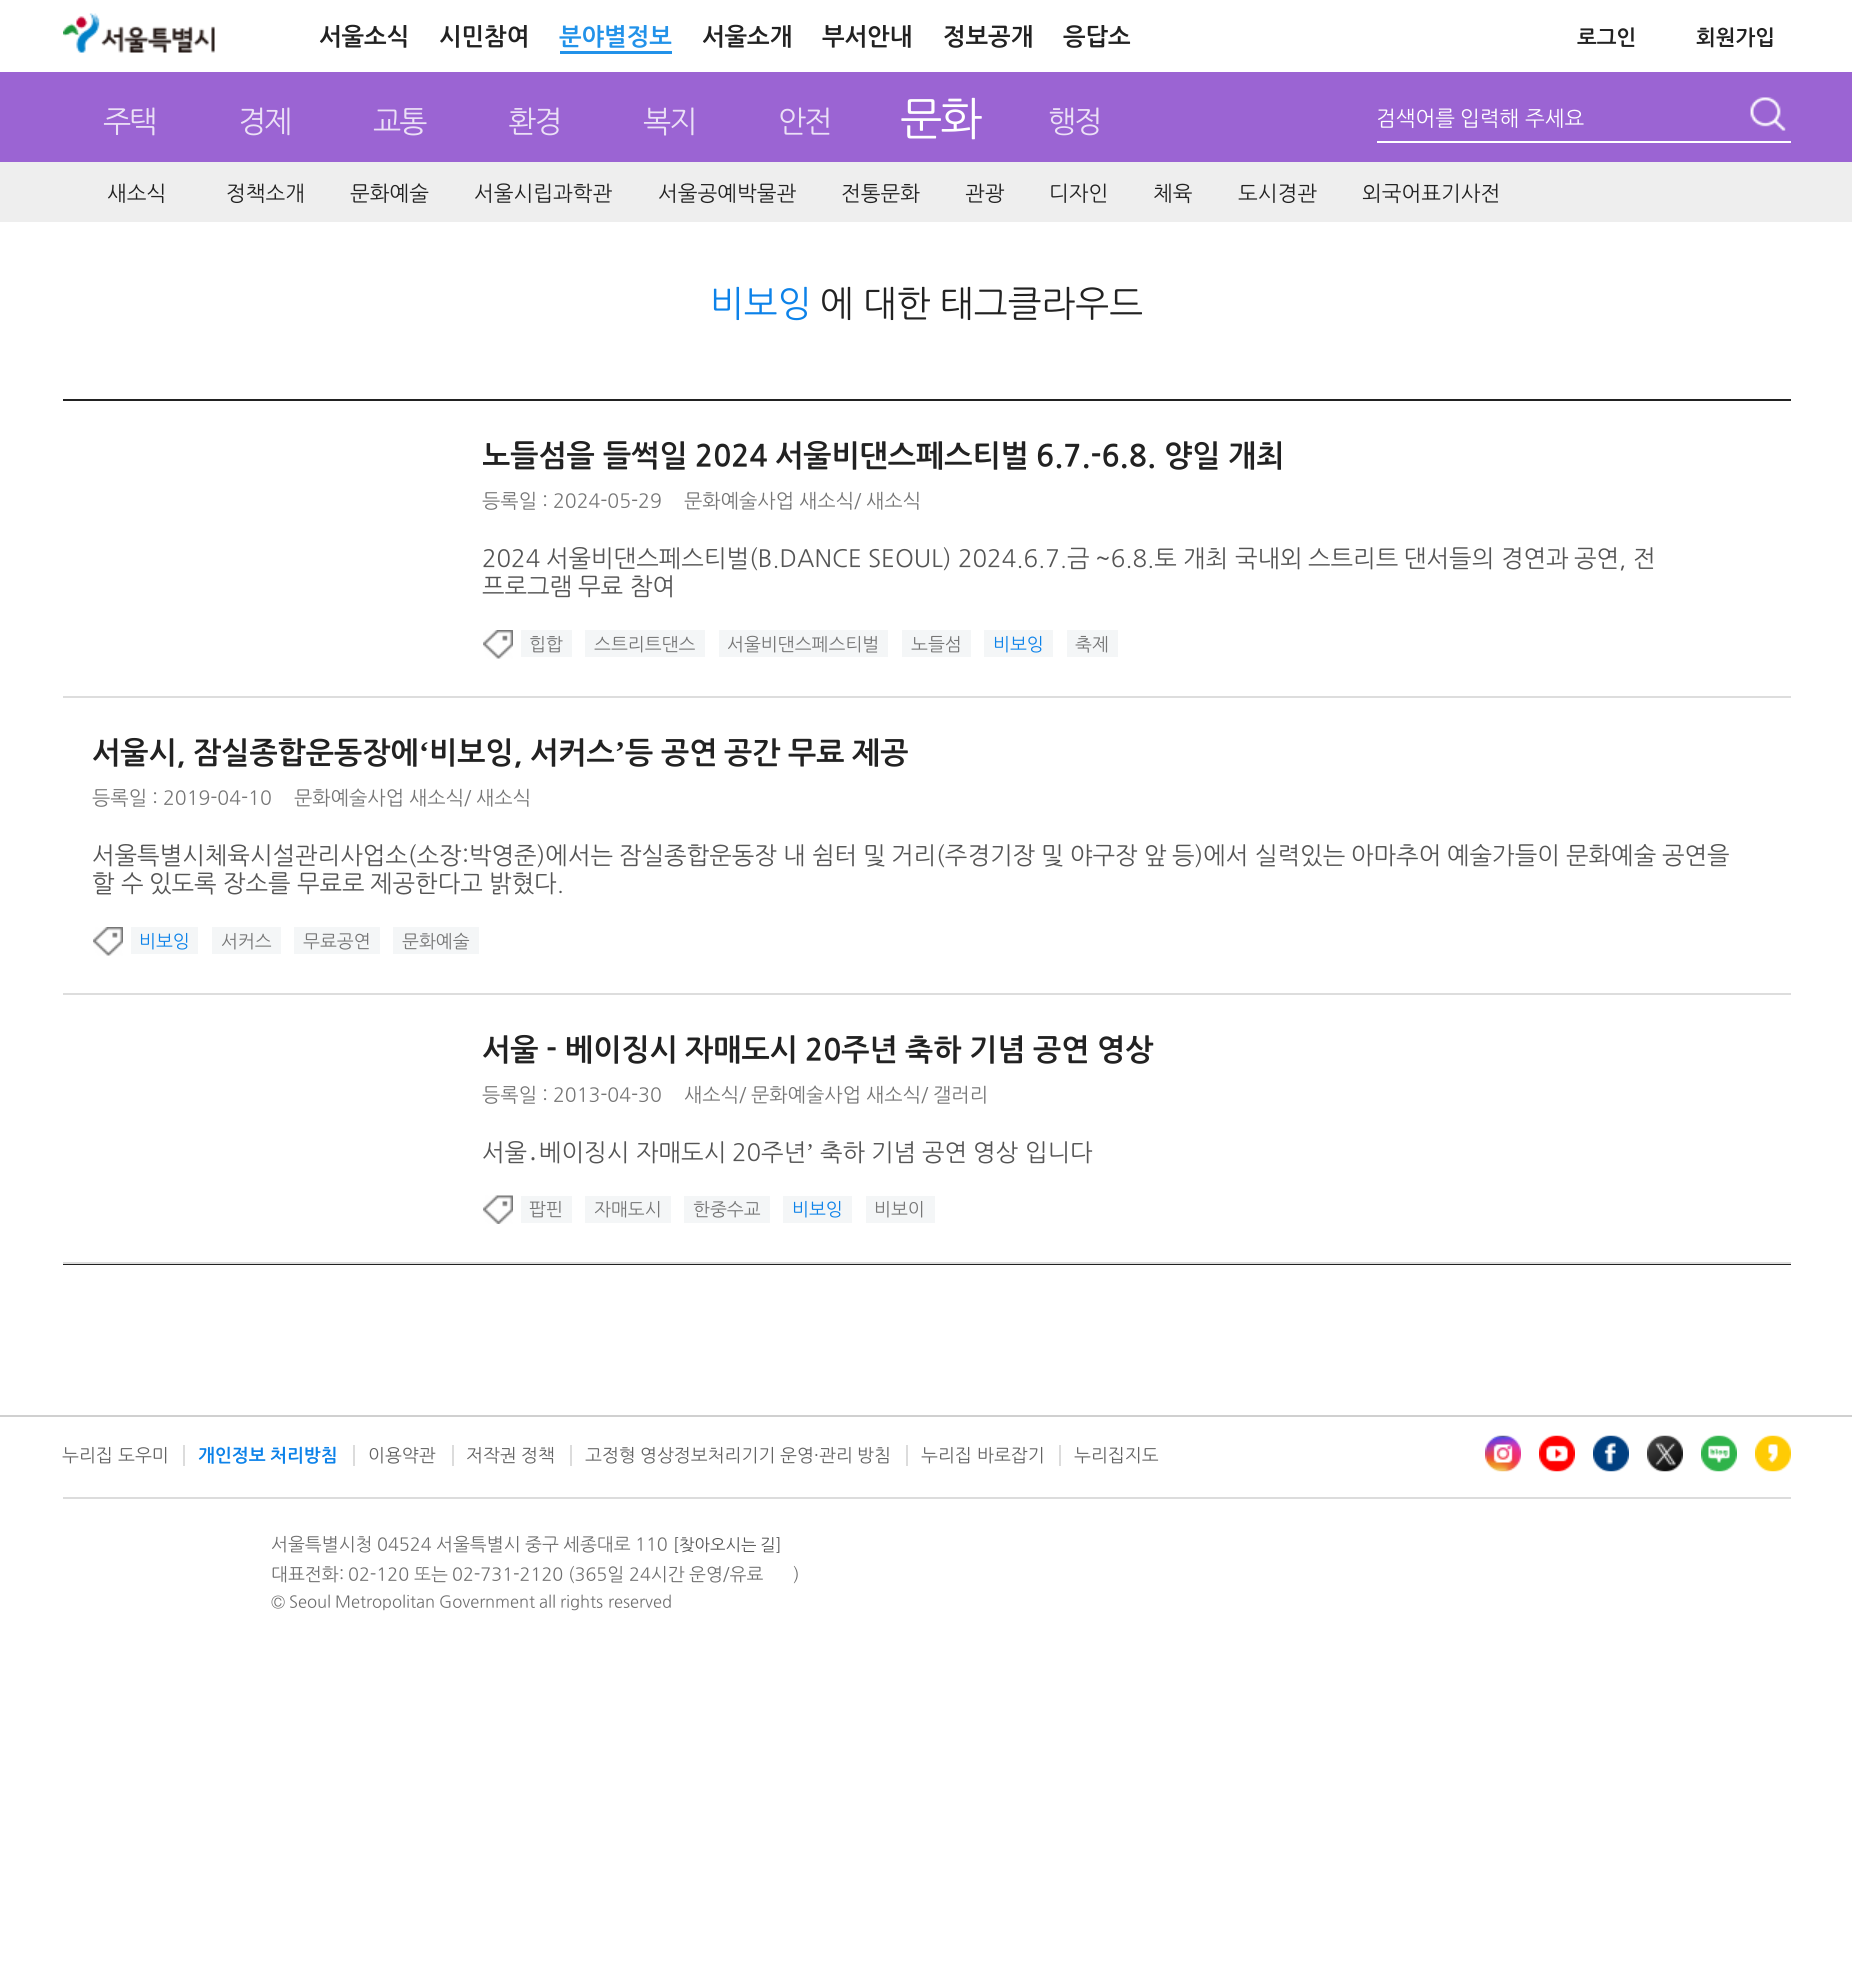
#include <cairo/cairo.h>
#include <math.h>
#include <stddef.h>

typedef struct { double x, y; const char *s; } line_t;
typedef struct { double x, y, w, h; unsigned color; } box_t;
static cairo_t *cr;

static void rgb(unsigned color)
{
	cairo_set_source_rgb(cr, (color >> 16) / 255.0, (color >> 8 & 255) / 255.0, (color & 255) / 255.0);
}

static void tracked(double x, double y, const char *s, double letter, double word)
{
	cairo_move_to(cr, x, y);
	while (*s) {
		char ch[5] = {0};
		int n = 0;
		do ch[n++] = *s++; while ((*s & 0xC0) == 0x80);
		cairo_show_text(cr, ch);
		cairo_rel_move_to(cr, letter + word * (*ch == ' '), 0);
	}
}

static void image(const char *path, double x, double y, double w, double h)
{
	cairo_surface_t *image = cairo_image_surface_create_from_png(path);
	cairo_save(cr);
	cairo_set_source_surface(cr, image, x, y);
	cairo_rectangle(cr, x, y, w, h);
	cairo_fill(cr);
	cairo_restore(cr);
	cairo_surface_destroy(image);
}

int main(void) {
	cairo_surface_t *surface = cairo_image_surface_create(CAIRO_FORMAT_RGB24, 1852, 1973);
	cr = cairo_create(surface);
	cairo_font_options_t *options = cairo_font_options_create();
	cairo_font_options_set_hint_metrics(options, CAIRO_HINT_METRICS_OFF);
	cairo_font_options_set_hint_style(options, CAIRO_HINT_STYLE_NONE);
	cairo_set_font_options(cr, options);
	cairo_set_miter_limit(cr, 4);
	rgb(0xffffff);
	cairo_paint(cr);
	image("img/1.png", 63, 13, 152, 40);
	{
		static const box_t items[] = {
			{560, 51, 112, 3, 0x2292e9},
			{0, 72, 1852, 90, 0x9b64d3},
			{1377, 141, 414, 2, 0xffffff},
		};
		for (size_t i = 0; i < sizeof items / sizeof *items; i++) {
			rgb(items[i].color);
			cairo_rectangle(cr, items[i].x, items[i].y, items[i].w, items[i].h);
			cairo_fill(cr);
		}
	}
	image("img/2.png", 1750, 97, 36, 34);
	{
		static const box_t items[] = {
			{0, 162, 1852, 60, 0xeeeeee},
			{63, 399, 1728, 2, 0x222222},
			{63, 1264, 1728, 1, 0x222222},
			{63, 696, 1728, 2, 0xdddddd},
		};
		for (size_t i = 0; i < sizeof items / sizeof *items; i++) {
			rgb(items[i].color);
			cairo_rectangle(cr, items[i].x, items[i].y, items[i].w, items[i].h);
			cairo_fill(cr);
		}
	}
	image("img/3.png", 483, 630, 30, 29);
	{
		static const box_t items[] = {
			{521, 630, 51, 27, 0xf4f6f7},
			{585, 630, 120, 27, 0xf4f6f7},
			{719, 630, 169, 27, 0xf4f6f7},
			{902, 630, 69, 27, 0xf4f6f7},
			{984, 630, 69, 27, 0xf4f6f7},
			{1067, 630, 51, 27, 0xf4f6f7},
			{63, 993, 1728, 2, 0xdddddd},
		};
		for (size_t i = 0; i < sizeof items / sizeof *items; i++) {
			rgb(items[i].color);
			cairo_rectangle(cr, items[i].x, items[i].y, items[i].w, items[i].h);
			cairo_fill(cr);
		}
	}
	image("img/4.png", 93, 927, 30, 29);
	{
		static const box_t items[] = {
			{131, 927, 67, 27, 0xf4f6f7},
			{212, 927, 69, 27, 0xf4f6f7},
			{294, 927, 86, 27, 0xf4f6f7},
			{393, 927, 86, 27, 0xf4f6f7},
			{63, 1262, 1728, 2, 0xdddddd},
		};
		for (size_t i = 0; i < sizeof items / sizeof *items; i++) {
			rgb(items[i].color);
			cairo_rectangle(cr, items[i].x, items[i].y, items[i].w, items[i].h);
			cairo_fill(cr);
		}
	}
	image("img/5.png", 483, 1195, 30, 29);
	{
		static const box_t items[] = {
			{521, 1196, 51, 27, 0xf4f6f7},
			{585, 1196, 86, 27, 0xf4f6f7},
			{684, 1196, 86, 27, 0xf4f6f7},
			{783, 1196, 69, 27, 0xf4f6f7},
			{866, 1196, 69, 27, 0xf4f6f7},
			{0, 1415, 1852, 2, 0xd0d0d0},
			{183, 1445, 2, 21, 0xdcdcdc},
			{353, 1445, 2, 21, 0xdcdcdc},
			{452, 1445, 2, 21, 0xdcdcdc},
			{570, 1445, 2, 21, 0xdcdcdc},
			{906, 1445, 2, 21, 0xdcdcdc},
			{1059, 1445, 2, 21, 0xdcdcdc},
		};
		for (size_t i = 0; i < sizeof items / sizeof *items; i++) {
			rgb(items[i].color);
			cairo_rectangle(cr, items[i].x, items[i].y, items[i].w, items[i].h);
			cairo_fill(cr);
		}
	}
	image("img/6.png", 1485, 1435, 36, 37);
	image("img/7.png", 1539, 1435, 36, 37);
	image("img/8.png", 1593, 1435, 36, 37);
	image("img/9.png", 1647, 1435, 36, 37);
	image("img/10.png", 1701, 1435, 36, 37);
	image("img/11.png", 1755, 1435, 36, 37);
	cairo_rectangle(cr, 63, 1497, 1728, 2);
	cairo_fill(cr);
	cairo_select_font_face(cr, "NanumGothic", CAIRO_FONT_SLANT_NORMAL, CAIRO_FONT_WEIGHT_BOLD);
	cairo_set_font_size(cr, 24);
	rgb(0x222222);
	cairo_move_to(cr, 319, 44);
	cairo_show_text(cr, "서울소식");
	cairo_move_to(cr, 439, 44);
	cairo_show_text(cr, "시민참여");
	rgb(0x2292e9);
	cairo_move_to(cr, 559, 44);
	cairo_show_text(cr, "분야별정보");
	rgb(0x222222);
	{
		static const line_t items[] = {
			{702, 44, "서울소개"},
			{822, 44, "부서안내"},
			{943, 44, "정보공개"},
			{1063, 44, "응답소"},
		};
		for (size_t i = 0; i < sizeof items / sizeof *items; i++) {
			cairo_move_to(cr, items[i].x, items[i].y);
			cairo_show_text(cr, items[i].s);
		}
	}
	cairo_set_font_size(cr, 21);
	cairo_move_to(cr, 1577, 44);
	cairo_show_text(cr, "로그인");
	cairo_move_to(cr, 1696, 44);
	cairo_show_text(cr, "회원가입");
	cairo_select_font_face(cr, "NanumGothic", CAIRO_FONT_SLANT_NORMAL, CAIRO_FONT_WEIGHT_NORMAL);
	cairo_set_font_size(cr, 30);
	rgb(0xebe0f6);
	{
		static const line_t items[] = {
			{103, 131, "주택"},
			{238, 131, "경제"},
			{373, 131, "교통"},
			{508, 131, "환경"},
			{643, 131, "복지"},
			{778, 131, "안전"},
		};
		for (size_t i = 0; i < sizeof items / sizeof *items; i++) {
			tracked(items[i].x, items[i].y, items[i].s, -2, 0);
		}
	}
	cairo_set_font_size(cr, 45);
	rgb(0xffffff);
	tracked(900, 133, "문화", -2, 0);
	cairo_set_font_size(cr, 30);
	rgb(0xebe0f6);
	tracked(1048, 131, "행정", -2, 0);
	cairo_set_font_size(cr, 21);
	rgb(0xffffff);
	{
		static const line_t items[] = {
			{1376, 125, "검색어를"},
			{1460, 125, "입력해"},
			{1525, 125, "주세요"},
		};
		for (size_t i = 0; i < sizeof items / sizeof *items; i++) {
			cairo_move_to(cr, items[i].x, items[i].y);
			cairo_show_text(cr, items[i].s);
		}
	}
	rgb(0x222222);
	{
		static const line_t items[] = {
			{107, 200, "새소식"},
			{226, 200, "정책소개"},
			{350, 200, "문화예술"},
			{474, 200, "서울시립과학관"},
			{658, 200, "서울공예박물관"},
			{841, 200, "전통문화"},
			{965, 200, "관광"},
			{1049, 200, "디자인"},
			{1153, 200, "체육"},
			{1238, 200, "도시경관"},
			{1362, 200, "외국어표기사전"},
		};
		for (size_t i = 0; i < sizeof items / sizeof *items; i++) {
			cairo_move_to(cr, items[i].x, items[i].y);
			cairo_show_text(cr, items[i].s);
		}
	}
	cairo_set_font_size(cr, 36);
	rgb(0x0c82e9);
	cairo_move_to(cr, 710, 315);
	cairo_show_text(cr, "비보잉");
	rgb(0x222222);
	{
		static const line_t items[] = {
			{820, 315, "에"},
			{863, 315, "대한"},
			{940, 315, "태그클라우드"},
		};
		for (size_t i = 0; i < sizeof items / sizeof *items; i++) {
			cairo_move_to(cr, items[i].x, items[i].y);
			cairo_show_text(cr, items[i].s);
		}
	}
	cairo_save(cr);
	cairo_rectangle(cr, 483, 438, 1263, 36);
	cairo_clip(cr);
	cairo_select_font_face(cr, "NanumGothic", CAIRO_FONT_SLANT_NORMAL, CAIRO_FONT_WEIGHT_BOLD);
	cairo_set_font_size(cr, 30);
	cairo_move_to(cr, 482, 465);
	cairo_show_text(cr, "노들섬을");
	cairo_restore(cr);
	cairo_select_font_face(cr, "NanumGothic", CAIRO_FONT_SLANT_NORMAL, CAIRO_FONT_WEIGHT_BOLD);
	cairo_set_font_size(cr, 30);
	{
		static const line_t items[] = {
			{603, 465, "들썩일"},
			{695, 465, "2024"},
			{775, 465, "서울비댄스페스티벌"},
			{1036, 465, "6.7.-6.8."},
			{1164, 465, "양일"},
			{1228, 465, "개최"},
		};
		for (size_t i = 0; i < sizeof items / sizeof *items; i++) {
			cairo_move_to(cr, items[i].x, items[i].y);
			cairo_show_text(cr, items[i].s);
		}
	}
	cairo_select_font_face(cr, "NanumGothic", CAIRO_FONT_SLANT_NORMAL, CAIRO_FONT_WEIGHT_NORMAL);
	cairo_set_font_size(cr, 19.5);
	rgb(0x767676);
	{
		static const line_t items[] = {
			{482, 507, "등록일"},
			{542, 507, ":"},
			{553, 507, "2024-05-29"},
			{684, 507, "문화예술사업"},
			{799, 507, "새소식/"},
			{866, 507, "새소식"},
		};
		for (size_t i = 0; i < sizeof items / sizeof *items; i++) {
			cairo_move_to(cr, items[i].x, items[i].y);
			cairo_show_text(cr, items[i].s);
		}
	}
	cairo_set_font_size(cr, 24);
	rgb(0x555555);
	{
		static const line_t items[] = {
			{482, 566, "2024"},
			{546, 566, "서울비댄스페스티벌(B.DANCE"},
			{868, 566, "SEOUL)"},
			{958, 566, "2024.6.7.금"},
			{1095, 566, "~6.8.토"},
			{1183, 566, "개최"},
			{1235, 566, "국내외"},
			{1308, 566, "스트리트"},
			{1404, 566, "댄서들의"},
			{1501, 566, "경연과"},
			{1574, 566, "공연,"},
			{1633, 566, "전"},
			{482, 594, "프로그램"},
			{578, 594, "무료"},
			{630, 594, "참여"},
		};
		for (size_t i = 0; i < sizeof items / sizeof *items; i++) {
			cairo_move_to(cr, items[i].x, items[i].y);
			cairo_show_text(cr, items[i].s);
		}
	}
	cairo_set_font_size(cr, 18);
	rgb(0x767676);
	{
		static const line_t items[] = {
			{529, 650, "힙합"},
			{594, 650, "스트리트댄스"},
			{727, 650, "서울비댄스페스티벌"},
			{911, 650, "노들섬"},
		};
		for (size_t i = 0; i < sizeof items / sizeof *items; i++) {
			cairo_move_to(cr, items[i].x, items[i].y);
			cairo_show_text(cr, items[i].s);
		}
	}
	rgb(0x0c82e9);
	cairo_move_to(cr, 993, 650);
	cairo_show_text(cr, "비보잉");
	rgb(0x767676);
	cairo_move_to(cr, 1075, 650);
	cairo_show_text(cr, "축제");
	cairo_select_font_face(cr, "NanumGothic", CAIRO_FONT_SLANT_NORMAL, CAIRO_FONT_WEIGHT_BOLD);
	cairo_set_font_size(cr, 30);
	rgb(0x222222);
	cairo_move_to(cr, 92, 762);
	cairo_show_text(cr, "서울시,");
	cairo_move_to(cr, 193, 762);
	cairo_show_text(cr, "잠실종합운동장에");
	cairo_select_font_face(cr, "Liberation Serif", CAIRO_FONT_SLANT_NORMAL, CAIRO_FONT_WEIGHT_BOLD);
	cairo_move_to(cr, 419, 762);
	cairo_show_text(cr, "‘");
	cairo_select_font_face(cr, "NanumGothic", CAIRO_FONT_SLANT_NORMAL, CAIRO_FONT_WEIGHT_BOLD);
	cairo_move_to(cr, 429, 762);
	cairo_show_text(cr, "비보잉,");
	cairo_move_to(cr, 530, 762);
	cairo_show_text(cr, "서커스");
	cairo_select_font_face(cr, "Liberation Serif", CAIRO_FONT_SLANT_NORMAL, CAIRO_FONT_WEIGHT_BOLD);
	cairo_move_to(cr, 615, 762);
	cairo_show_text(cr, "’");
	cairo_select_font_face(cr, "NanumGothic", CAIRO_FONT_SLANT_NORMAL, CAIRO_FONT_WEIGHT_BOLD);
	{
		static const line_t items[] = {
			{625, 762, "등"},
			{661, 762, "공연"},
			{724, 762, "공간"},
			{788, 762, "무료"},
			{852, 762, "제공"},
		};
		for (size_t i = 0; i < sizeof items / sizeof *items; i++) {
			cairo_move_to(cr, items[i].x, items[i].y);
			cairo_show_text(cr, items[i].s);
		}
	}
	cairo_select_font_face(cr, "NanumGothic", CAIRO_FONT_SLANT_NORMAL, CAIRO_FONT_WEIGHT_NORMAL);
	cairo_set_font_size(cr, 19.5);
	rgb(0x767676);
	{
		static const line_t items[] = {
			{92, 804, "등록일"},
			{152, 804, ":"},
			{163, 804, "2019-04-10"},
			{294, 804, "문화예술사업"},
			{409, 804, "새소식/"},
			{476, 804, "새소식"},
		};
		for (size_t i = 0; i < sizeof items / sizeof *items; i++) {
			cairo_move_to(cr, items[i].x, items[i].y);
			cairo_show_text(cr, items[i].s);
		}
	}
	cairo_set_font_size(cr, 24);
	rgb(0x555555);
	{
		static const line_t items[] = {
			{92, 863, "서울특별시체육시설관리사업소(소장:박영준)에서는"},
			{619, 863, "잠실종합운동장"},
			{783, 863, "내"},
			{812, 863, "쉼터"},
			{863, 863, "및"},
			{891, 863, "거리(주경기장"},
			{1041, 863, "및"},
			{1070, 863, "야구장"},
			{1144, 863, "앞"},
			{1172, 863, "등)에서"},
			{1255, 863, "실력있는"},
			{1351, 863, "아마추어"},
			{1447, 863, "예술가들이"},
			{1566, 863, "문화예술"},
			{1662, 863, "공연을"},
			{92, 891, "할"},
			{121, 891, "수"},
			{149, 891, "있도록"},
			{223, 891, "장소를"},
			{297, 891, "무료로"},
			{370, 891, "제공한다고"},
			{489, 891, "밝혔다."},
		};
		for (size_t i = 0; i < sizeof items / sizeof *items; i++) {
			cairo_move_to(cr, items[i].x, items[i].y);
			cairo_show_text(cr, items[i].s);
		}
	}
	cairo_set_font_size(cr, 18);
	rgb(0x0c82e9);
	cairo_move_to(cr, 139, 947);
	cairo_show_text(cr, "비보잉");
	rgb(0x767676);
	{
		static const line_t items[] = {
			{221, 947, "서커스"},
			{303, 947, "무료공연"},
			{402, 947, "문화예술"},
		};
		for (size_t i = 0; i < sizeof items / sizeof *items; i++) {
			cairo_move_to(cr, items[i].x, items[i].y);
			cairo_show_text(cr, items[i].s);
		}
	}
	cairo_select_font_face(cr, "NanumGothic", CAIRO_FONT_SLANT_NORMAL, CAIRO_FONT_WEIGHT_BOLD);
	cairo_set_font_size(cr, 30);
	rgb(0x222222);
	{
		static const line_t items[] = {
			{482, 1059, "서울"},
			{546, 1059, "-"},
			{565, 1059, "베이징시"},
			{685, 1059, "자매도시"},
			{805, 1059, "20주년"},
			{905, 1059, "축하"},
			{969, 1059, "기념"},
			{1033, 1059, "공연"},
			{1097, 1059, "영상"},
		};
		for (size_t i = 0; i < sizeof items / sizeof *items; i++) {
			cairo_move_to(cr, items[i].x, items[i].y);
			cairo_show_text(cr, items[i].s);
		}
	}
	cairo_select_font_face(cr, "NanumGothic", CAIRO_FONT_SLANT_NORMAL, CAIRO_FONT_WEIGHT_NORMAL);
	cairo_set_font_size(cr, 19.5);
	rgb(0x767676);
	{
		static const line_t items[] = {
			{482, 1101, "등록일"},
			{542, 1101, ":"},
			{553, 1101, "2013-04-30"},
			{684, 1101, "새소식/"},
			{751, 1101, "문화예술사업"},
			{866, 1101, "새소식/"},
			{933, 1101, "갤러리"},
		};
		for (size_t i = 0; i < sizeof items / sizeof *items; i++) {
			cairo_move_to(cr, items[i].x, items[i].y);
			cairo_show_text(cr, items[i].s);
		}
	}
	cairo_set_font_size(cr, 24);
	rgb(0x555555);
	{
		static const line_t items[] = {
			{482, 1160, "서울"},
			{539, 1160, "베이징시"},
			{636, 1160, "자매도시"},
			{732, 1160, "20주년"},
		};
		for (size_t i = 0; i < sizeof items / sizeof *items; i++) {
			cairo_move_to(cr, items[i].x, items[i].y);
			cairo_show_text(cr, items[i].s);
		}
	}
	cairo_select_font_face(cr, "Liberation Serif", CAIRO_FONT_SLANT_NORMAL, CAIRO_FONT_WEIGHT_NORMAL);
	cairo_move_to(cr, 806, 1160);
	cairo_show_text(cr, "’");
	cairo_select_font_face(cr, "NanumGothic", CAIRO_FONT_SLANT_NORMAL, CAIRO_FONT_WEIGHT_NORMAL);
	{
		static const line_t items[] = {
			{820, 1160, "축하"},
			{871, 1160, "기념"},
			{922, 1160, "공연"},
			{973, 1160, "영상"},
			{1025, 1160, "입니다"},
		};
		for (size_t i = 0; i < sizeof items / sizeof *items; i++) {
			cairo_move_to(cr, items[i].x, items[i].y);
			cairo_show_text(cr, items[i].s);
		}
	}
	cairo_select_font_face(cr, "Noto Sans", CAIRO_FONT_SLANT_NORMAL, CAIRO_FONT_WEIGHT_NORMAL);
	cairo_move_to(cr, 527, 1160);
	cairo_show_text(cr, "․");
	cairo_select_font_face(cr, "NanumGothic", CAIRO_FONT_SLANT_NORMAL, CAIRO_FONT_WEIGHT_NORMAL);
	cairo_set_font_size(cr, 18);
	rgb(0x767676);
	{
		static const line_t items[] = {
			{529, 1215, "팝핀"},
			{594, 1215, "자매도시"},
			{693, 1215, "한중수교"},
		};
		for (size_t i = 0; i < sizeof items / sizeof *items; i++) {
			cairo_move_to(cr, items[i].x, items[i].y);
			cairo_show_text(cr, items[i].s);
		}
	}
	rgb(0x0c82e9);
	cairo_move_to(cr, 792, 1215);
	cairo_show_text(cr, "비보잉");
	rgb(0x767676);
	cairo_move_to(cr, 874, 1215);
	cairo_show_text(cr, "비보이");
	rgb(0x636363);
	cairo_move_to(cr, 62, 1461);
	cairo_show_text(cr, "누리집");
	cairo_move_to(cr, 118, 1461);
	cairo_show_text(cr, "도우미");
	cairo_select_font_face(cr, "NanumGothic", CAIRO_FONT_SLANT_NORMAL, CAIRO_FONT_WEIGHT_BOLD);
	rgb(0x0c82e9);
	cairo_move_to(cr, 198, 1461);
	cairo_show_text(cr, "개인정보");
	cairo_move_to(cr, 270, 1461);
	cairo_show_text(cr, "처리방침");
	cairo_select_font_face(cr, "NanumGothic", CAIRO_FONT_SLANT_NORMAL, CAIRO_FONT_WEIGHT_NORMAL);
	rgb(0x636363);
	{
		static const line_t items[] = {
			{368, 1461, "이용약관"},
			{466, 1461, "저작권"},
			{521, 1461, "정책"},
			{585, 1461, "고정형"},
			{640, 1461, "영상정보처리기기"},
			{780, 1461, "운영·관리"},
			{857, 1461, "방침"},
			{921, 1461, "누리집"},
			{977, 1461, "바로잡기"},
			{1074, 1461, "누리집지도"},
		};
		for (size_t i = 0; i < sizeof items / sizeof *items; i++) {
			cairo_move_to(cr, items[i].x, items[i].y);
			cairo_show_text(cr, items[i].s);
		}
	}
	rgb(0x707070);
	{
		static const line_t items[] = {
			{271, 1550, "서울특별시청"},
			{377, 1550, "04524"},
			{436, 1550, "서울특별시"},
			{525, 1550, "중구"},
			{563, 1550, "세종대로"},
			{635, 1550, "110"},
		};
		for (size_t i = 0; i < sizeof items / sizeof *items; i++) {
			cairo_move_to(cr, items[i].x, items[i].y);
			cairo_show_text(cr, items[i].s);
		}
	}
	cairo_set_font_size(cr, 16.5);
	rgb(0x555555);
	cairo_move_to(cr, 673, 1550);
	cairo_show_text(cr, "[찾아오시는");
	cairo_move_to(cr, 760, 1550);
	cairo_show_text(cr, "길]");
	cairo_set_font_size(cr, 18);
	rgb(0x707070);
	{
		static const line_t items[] = {
			{271, 1580, "대표전화:"},
			{348, 1580, "02-120"},
			{414, 1580, "또는"},
			{452, 1580, "02-731-2120"},
			{568, 1580, "(365일"},
			{629, 1580, "24시간"},
			{689, 1580, "운영/유료"},
			{793, 1580, ")"},
		};
		for (size_t i = 0; i < sizeof items / sizeof *items; i++) {
			cairo_move_to(cr, items[i].x, items[i].y);
			cairo_show_text(cr, items[i].s);
		}
	}
	cairo_set_font_size(cr, 16.5);
	{
		static const line_t items[] = {
			{271, 1607, "©"},
			{289, 1607, "Seoul"},
			{335, 1607, "Metropolitan"},
			{439, 1607, "Government"},
			{539, 1607, "all"},
			{560, 1607, "rights"},
			{608, 1607, "reserved"},
		};
		for (size_t i = 0; i < sizeof items / sizeof *items; i++) {
			cairo_move_to(cr, items[i].x, items[i].y);
			cairo_show_text(cr, items[i].s);
		}
	}
	cairo_surface_write_to_png(surface, "page.png");
	cairo_font_options_destroy(options);
	cairo_destroy(cr);
	cairo_surface_destroy(surface);
	return 0;
}
